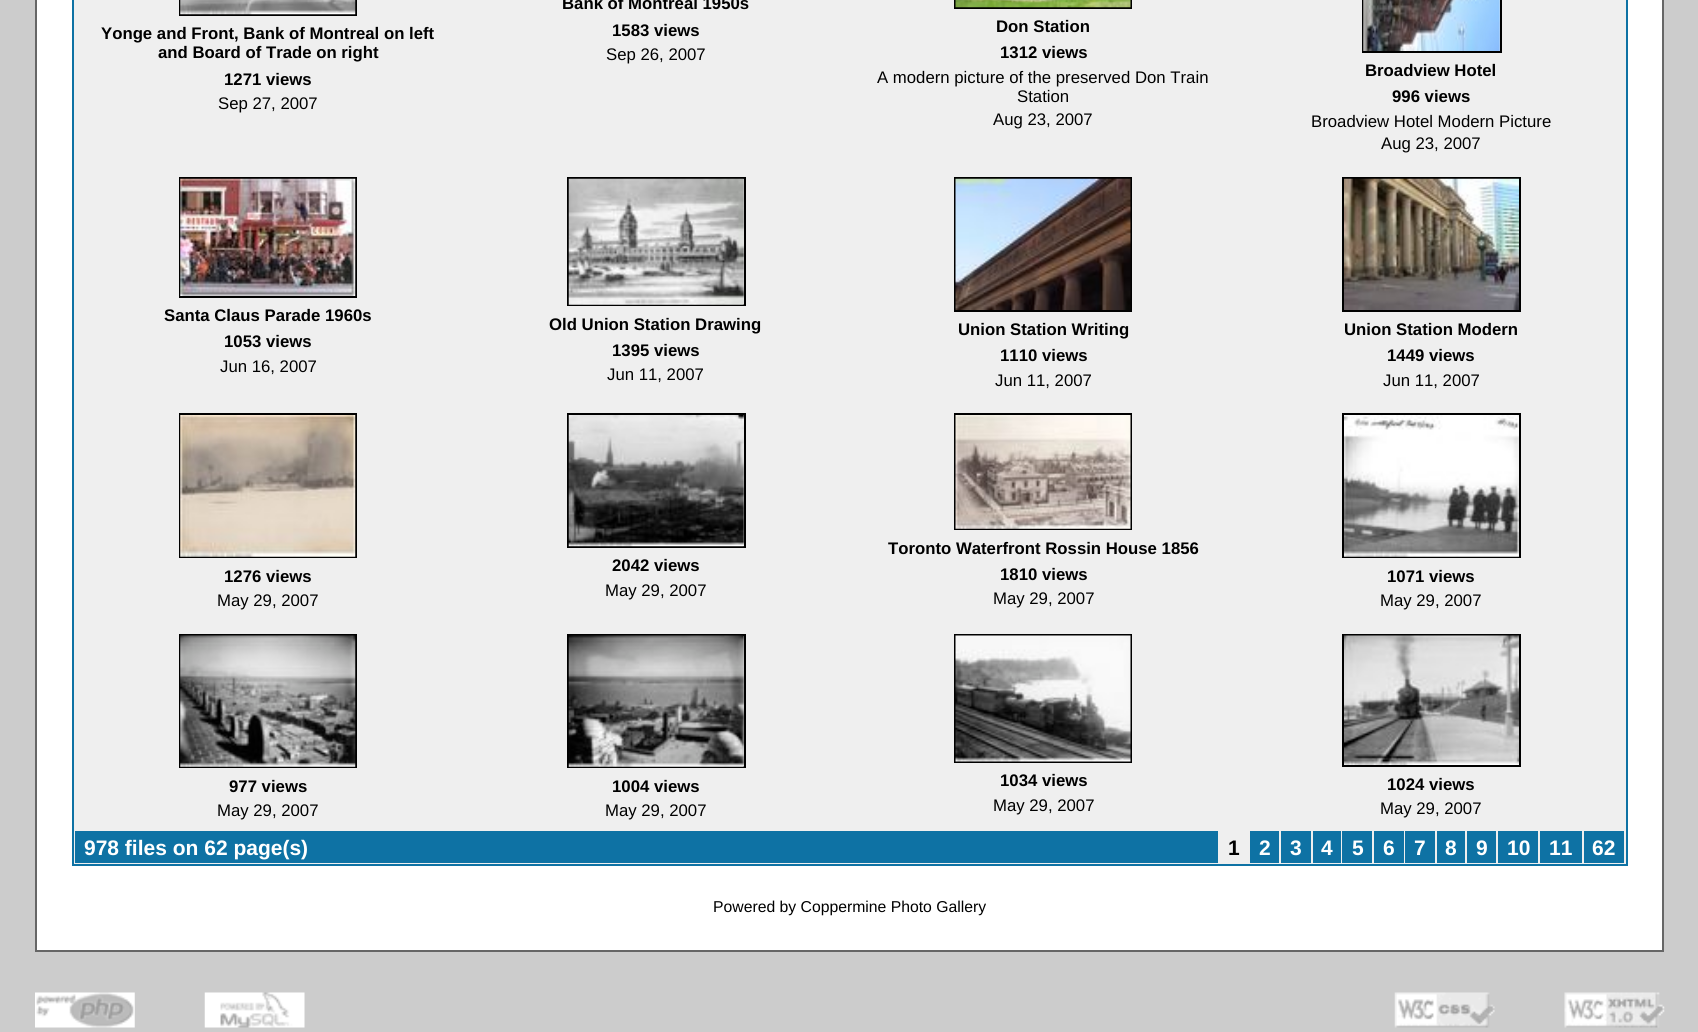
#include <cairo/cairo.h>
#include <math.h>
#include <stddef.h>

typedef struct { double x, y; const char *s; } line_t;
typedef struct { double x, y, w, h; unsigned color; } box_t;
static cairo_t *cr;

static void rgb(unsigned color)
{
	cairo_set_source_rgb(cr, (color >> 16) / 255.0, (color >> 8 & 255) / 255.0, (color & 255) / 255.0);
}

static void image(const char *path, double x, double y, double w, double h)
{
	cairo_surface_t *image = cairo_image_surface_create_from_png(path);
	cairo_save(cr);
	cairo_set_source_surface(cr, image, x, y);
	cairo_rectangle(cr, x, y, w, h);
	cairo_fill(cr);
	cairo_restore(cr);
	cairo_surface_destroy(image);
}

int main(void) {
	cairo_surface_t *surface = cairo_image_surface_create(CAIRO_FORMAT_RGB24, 1698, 1032);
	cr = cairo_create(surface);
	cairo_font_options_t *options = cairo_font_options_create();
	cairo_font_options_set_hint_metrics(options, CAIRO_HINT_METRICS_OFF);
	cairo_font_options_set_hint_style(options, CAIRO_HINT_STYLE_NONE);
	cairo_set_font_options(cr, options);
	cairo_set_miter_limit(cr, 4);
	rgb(0xcccccc);
	cairo_paint(cr);
	rgb(0xffffff);
	cairo_rectangle(cr, 36, -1, 1627, 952);
	cairo_fill_preserve(cr);
	rgb(0x666666);
	cairo_stroke(cr);
	rgb(0xefefef);
	cairo_rectangle(cr, 73, -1, 1554, 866);
	cairo_fill_preserve(cr);
	rgb(0x0e72a4);
	cairo_stroke(cr);
	cairo_rectangle(cr, 180, -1, 176, 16);
	rgb(0x000000);
	cairo_stroke(cr);
	image("img/1.png", 180, 0, 176, 15);
	cairo_rectangle(cr, 955, -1, 176, 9);
	cairo_stroke(cr);
	image("img/2.png", 955, 0, 176, 8);
	cairo_rectangle(cr, 1363, -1, 138, 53);
	cairo_stroke(cr);
	image("img/3.png", 1363, 0, 137, 51);
	cairo_rectangle(cr, 180, 178, 176, 119);
	cairo_stroke(cr);
	image("img/4.png", 180, 178, 176, 118);
	cairo_rectangle(cr, 568, 178, 177, 127);
	cairo_stroke(cr);
	image("img/5.png", 568, 178, 176, 127);
	cairo_rectangle(cr, 955, 178, 176, 133);
	cairo_stroke(cr);
	image("img/6.png", 955, 178, 176, 132);
	cairo_rectangle(cr, 1343, 178, 177, 133);
	cairo_stroke(cr);
	image("img/7.png", 1344, 178, 175, 132);
	cairo_rectangle(cr, 180, 414, 176, 143);
	cairo_stroke(cr);
	image("img/8.png", 180, 415, 176, 142);
	cairo_rectangle(cr, 568, 414, 177, 133);
	cairo_stroke(cr);
	image("img/9.png", 568, 415, 176, 132);
	cairo_rectangle(cr, 955, 414, 176, 115);
	cairo_stroke(cr);
	image("img/10.png", 955, 415, 176, 114);
	cairo_rectangle(cr, 1343, 414, 177, 143);
	cairo_stroke(cr);
	image("img/11.png", 1344, 415, 175, 142);
	cairo_rectangle(cr, 180, 635, 176, 132);
	cairo_stroke(cr);
	image("img/12.png", 180, 635, 176, 132);
	cairo_rectangle(cr, 568, 635, 177, 132);
	cairo_stroke(cr);
	image("img/13.png", 568, 635, 176, 132);
	cairo_rectangle(cr, 955, 635, 176, 127);
	cairo_stroke(cr);
	image("img/14.png", 955, 635, 176, 127);
	cairo_rectangle(cr, 1343, 635, 177, 131);
	cairo_stroke(cr);
	image("img/15.png", 1344, 635, 175, 130);
	{
		static const box_t items[] = {
			{75, 831, 1143, 32, 0x0e72a4},
			{1250, 831, 29, 32, 0x0e72a4},
			{1281, 831, 30, 32, 0x0e72a4},
			{1313, 831, 28, 32, 0x0e72a4},
			{1342, 831, 30, 32, 0x0e72a4},
			{1374, 831, 30, 32, 0x0e72a4},
			{1405, 831, 30, 32, 0x0e72a4},
			{1437, 831, 28, 32, 0x0e72a4},
			{1467, 831, 29, 32, 0x0e72a4},
			{1498, 831, 40, 32, 0x0e72a4},
			{1540, 831, 42, 32, 0x0e72a4},
			{1584, 831, 40, 32, 0x0e72a4},
		};
		for (size_t i = 0; i < sizeof items / sizeof *items; i++) {
			rgb(items[i].color);
			cairo_rectangle(cr, items[i].x, items[i].y, items[i].w, items[i].h);
			cairo_fill(cr);
		}
	}
	image("img/16.png", 35, 992, 100, 36);
	image("img/17.png", 204, 992, 101, 36);
	image("img/18.png", 1394, 992, 101, 36);
	image("img/19.png", 1564, 992, 101, 36);
	cairo_select_font_face(cr, "Liberation Sans", CAIRO_FONT_SLANT_NORMAL, CAIRO_FONT_WEIGHT_BOLD);
	cairo_set_font_size(cr, 16.75);
	rgb(0x000000);
	{
		static const line_t items[] = {
			{101, 39, "Yonge and Front, Bank of Montreal on left"},
			{158, 58, "and Board of Trade on right"},
			{224, 85, "1271 views"},
		};
		for (size_t i = 0; i < sizeof items / sizeof *items; i++) {
			cairo_move_to(cr, items[i].x, items[i].y);
			cairo_show_text(cr, items[i].s);
		}
	}
	cairo_select_font_face(cr, "Liberation Sans", CAIRO_FONT_SLANT_NORMAL, CAIRO_FONT_WEIGHT_NORMAL);
	cairo_move_to(cr, 218, 109);
	cairo_show_text(cr, "Sep 27, 2007");
	cairo_select_font_face(cr, "Liberation Sans", CAIRO_FONT_SLANT_NORMAL, CAIRO_FONT_WEIGHT_BOLD);
	cairo_move_to(cr, 562, 9);
	cairo_show_text(cr, "Bank of Montreal 1950s");
	cairo_move_to(cr, 612, 36);
	cairo_show_text(cr, "1583 views");
	cairo_select_font_face(cr, "Liberation Sans", CAIRO_FONT_SLANT_NORMAL, CAIRO_FONT_WEIGHT_NORMAL);
	cairo_move_to(cr, 606, 60);
	cairo_show_text(cr, "Sep 26, 2007");
	cairo_select_font_face(cr, "Liberation Sans", CAIRO_FONT_SLANT_NORMAL, CAIRO_FONT_WEIGHT_BOLD);
	cairo_move_to(cr, 996, 32);
	cairo_show_text(cr, "Don Station");
	cairo_move_to(cr, 1000, 58);
	cairo_show_text(cr, "1312 views");
	cairo_select_font_face(cr, "Liberation Sans", CAIRO_FONT_SLANT_NORMAL, CAIRO_FONT_WEIGHT_NORMAL);
	{
		static const line_t items[] = {
			{877, 83, "A modern picture of the preserved Don Train"},
			{1017, 102, "Station"},
			{993, 125, "Aug 23, 2007"},
		};
		for (size_t i = 0; i < sizeof items / sizeof *items; i++) {
			cairo_move_to(cr, items[i].x, items[i].y);
			cairo_show_text(cr, items[i].s);
		}
	}
	cairo_select_font_face(cr, "Liberation Sans", CAIRO_FONT_SLANT_NORMAL, CAIRO_FONT_WEIGHT_BOLD);
	cairo_move_to(cr, 1365, 76);
	cairo_show_text(cr, "Broadview Hotel");
	cairo_move_to(cr, 1392, 102);
	cairo_show_text(cr, "996 views");
	cairo_select_font_face(cr, "Liberation Sans", CAIRO_FONT_SLANT_NORMAL, CAIRO_FONT_WEIGHT_NORMAL);
	cairo_move_to(cr, 1311, 127);
	cairo_show_text(cr, "Broadview Hotel Modern Picture");
	cairo_move_to(cr, 1381, 149);
	cairo_show_text(cr, "Aug 23, 2007");
	cairo_select_font_face(cr, "Liberation Sans", CAIRO_FONT_SLANT_NORMAL, CAIRO_FONT_WEIGHT_BOLD);
	cairo_move_to(cr, 164, 321);
	cairo_show_text(cr, "Santa Claus Parade 1960s");
	cairo_move_to(cr, 224, 347);
	cairo_show_text(cr, "1053 views");
	cairo_select_font_face(cr, "Liberation Sans", CAIRO_FONT_SLANT_NORMAL, CAIRO_FONT_WEIGHT_NORMAL);
	cairo_move_to(cr, 220, 372);
	cairo_show_text(cr, "Jun 16, 2007");
	cairo_select_font_face(cr, "Liberation Sans", CAIRO_FONT_SLANT_NORMAL, CAIRO_FONT_WEIGHT_BOLD);
	cairo_move_to(cr, 549, 330);
	cairo_show_text(cr, "Old Union Station Drawing");
	cairo_move_to(cr, 612, 356);
	cairo_show_text(cr, "1395 views");
	cairo_select_font_face(cr, "Liberation Sans", CAIRO_FONT_SLANT_NORMAL, CAIRO_FONT_WEIGHT_NORMAL);
	cairo_move_to(cr, 607, 380);
	cairo_show_text(cr, "Jun 11, 2007");
	cairo_select_font_face(cr, "Liberation Sans", CAIRO_FONT_SLANT_NORMAL, CAIRO_FONT_WEIGHT_BOLD);
	cairo_move_to(cr, 958, 335);
	cairo_show_text(cr, "Union Station Writing");
	cairo_move_to(cr, 1000, 361);
	cairo_show_text(cr, "1110 views");
	cairo_select_font_face(cr, "Liberation Sans", CAIRO_FONT_SLANT_NORMAL, CAIRO_FONT_WEIGHT_NORMAL);
	cairo_move_to(cr, 995, 386);
	cairo_show_text(cr, "Jun 11, 2007");
	cairo_select_font_face(cr, "Liberation Sans", CAIRO_FONT_SLANT_NORMAL, CAIRO_FONT_WEIGHT_BOLD);
	cairo_move_to(cr, 1344, 335);
	cairo_show_text(cr, "Union Station Modern");
	cairo_move_to(cr, 1387, 361);
	cairo_show_text(cr, "1449 views");
	cairo_select_font_face(cr, "Liberation Sans", CAIRO_FONT_SLANT_NORMAL, CAIRO_FONT_WEIGHT_NORMAL);
	cairo_move_to(cr, 1383, 386);
	cairo_show_text(cr, "Jun 11, 2007");
	cairo_select_font_face(cr, "Liberation Sans", CAIRO_FONT_SLANT_NORMAL, CAIRO_FONT_WEIGHT_BOLD);
	cairo_move_to(cr, 224, 582);
	cairo_show_text(cr, "1276 views");
	cairo_select_font_face(cr, "Liberation Sans", CAIRO_FONT_SLANT_NORMAL, CAIRO_FONT_WEIGHT_NORMAL);
	cairo_move_to(cr, 217, 606);
	cairo_show_text(cr, "May 29, 2007");
	cairo_select_font_face(cr, "Liberation Sans", CAIRO_FONT_SLANT_NORMAL, CAIRO_FONT_WEIGHT_BOLD);
	cairo_move_to(cr, 612, 571);
	cairo_show_text(cr, "2042 views");
	cairo_select_font_face(cr, "Liberation Sans", CAIRO_FONT_SLANT_NORMAL, CAIRO_FONT_WEIGHT_NORMAL);
	cairo_move_to(cr, 605, 596);
	cairo_show_text(cr, "May 29, 2007");
	cairo_select_font_face(cr, "Liberation Sans", CAIRO_FONT_SLANT_NORMAL, CAIRO_FONT_WEIGHT_BOLD);
	cairo_move_to(cr, 888, 554);
	cairo_show_text(cr, "Toronto Waterfront Rossin House 1856");
	cairo_move_to(cr, 1000, 580);
	cairo_show_text(cr, "1810 views");
	cairo_select_font_face(cr, "Liberation Sans", CAIRO_FONT_SLANT_NORMAL, CAIRO_FONT_WEIGHT_NORMAL);
	cairo_move_to(cr, 993, 604);
	cairo_show_text(cr, "May 29, 2007");
	cairo_select_font_face(cr, "Liberation Sans", CAIRO_FONT_SLANT_NORMAL, CAIRO_FONT_WEIGHT_BOLD);
	cairo_move_to(cr, 1387, 582);
	cairo_show_text(cr, "1071 views");
	cairo_select_font_face(cr, "Liberation Sans", CAIRO_FONT_SLANT_NORMAL, CAIRO_FONT_WEIGHT_NORMAL);
	cairo_move_to(cr, 1380, 606);
	cairo_show_text(cr, "May 29, 2007");
	cairo_select_font_face(cr, "Liberation Sans", CAIRO_FONT_SLANT_NORMAL, CAIRO_FONT_WEIGHT_BOLD);
	cairo_move_to(cr, 229, 792);
	cairo_show_text(cr, "977 views");
	cairo_select_font_face(cr, "Liberation Sans", CAIRO_FONT_SLANT_NORMAL, CAIRO_FONT_WEIGHT_NORMAL);
	cairo_move_to(cr, 217, 816);
	cairo_show_text(cr, "May 29, 2007");
	cairo_select_font_face(cr, "Liberation Sans", CAIRO_FONT_SLANT_NORMAL, CAIRO_FONT_WEIGHT_BOLD);
	cairo_move_to(cr, 612, 792);
	cairo_show_text(cr, "1004 views");
	cairo_select_font_face(cr, "Liberation Sans", CAIRO_FONT_SLANT_NORMAL, CAIRO_FONT_WEIGHT_NORMAL);
	cairo_move_to(cr, 605, 816);
	cairo_show_text(cr, "May 29, 2007");
	cairo_select_font_face(cr, "Liberation Sans", CAIRO_FONT_SLANT_NORMAL, CAIRO_FONT_WEIGHT_BOLD);
	cairo_move_to(cr, 1000, 786);
	cairo_show_text(cr, "1034 views");
	cairo_select_font_face(cr, "Liberation Sans", CAIRO_FONT_SLANT_NORMAL, CAIRO_FONT_WEIGHT_NORMAL);
	cairo_move_to(cr, 993, 811);
	cairo_show_text(cr, "May 29, 2007");
	cairo_select_font_face(cr, "Liberation Sans", CAIRO_FONT_SLANT_NORMAL, CAIRO_FONT_WEIGHT_BOLD);
	cairo_move_to(cr, 1387, 790);
	cairo_show_text(cr, "1024 views");
	cairo_select_font_face(cr, "Liberation Sans", CAIRO_FONT_SLANT_NORMAL, CAIRO_FONT_WEIGHT_NORMAL);
	cairo_move_to(cr, 1380, 814);
	cairo_show_text(cr, "May 29, 2007");
	cairo_select_font_face(cr, "Liberation Sans", CAIRO_FONT_SLANT_NORMAL, CAIRO_FONT_WEIGHT_BOLD);
	cairo_set_font_size(cr, 21);
	rgb(0xffffff);
	cairo_move_to(cr, 84, 855);
	cairo_show_text(cr, "978 files on 62 page(s)");
	rgb(0x000000);
	cairo_move_to(cr, 1228, 855);
	cairo_show_text(cr, "1");
	rgb(0xffffff);
	{
		static const line_t items[] = {
			{1259, 855, "2"},
			{1290, 855, "3"},
			{1321, 855, "4"},
			{1352, 855, "5"},
			{1383, 855, "6"},
			{1414, 855, "7"},
			{1445, 855, "8"},
			{1476, 855, "9"},
			{1507, 855, "10"},
			{1549, 855, "11"},
			{1592, 855, "62"},
		};
		for (size_t i = 0; i < sizeof items / sizeof *items; i++) {
			cairo_move_to(cr, items[i].x, items[i].y);
			cairo_show_text(cr, items[i].s);
		}
	}
	cairo_select_font_face(cr, "Liberation Sans", CAIRO_FONT_SLANT_NORMAL, CAIRO_FONT_WEIGHT_NORMAL);
	cairo_set_font_size(cr, 15.75);
	rgb(0x000000);
	cairo_move_to(cr, 713, 912);
	cairo_show_text(cr, "Powered by Coppermine Photo Gallery");
	cairo_surface_write_to_png(surface, "page.png");
	cairo_font_options_destroy(options);
	cairo_destroy(cr);
	cairo_surface_destroy(surface);
	return 0;
}
